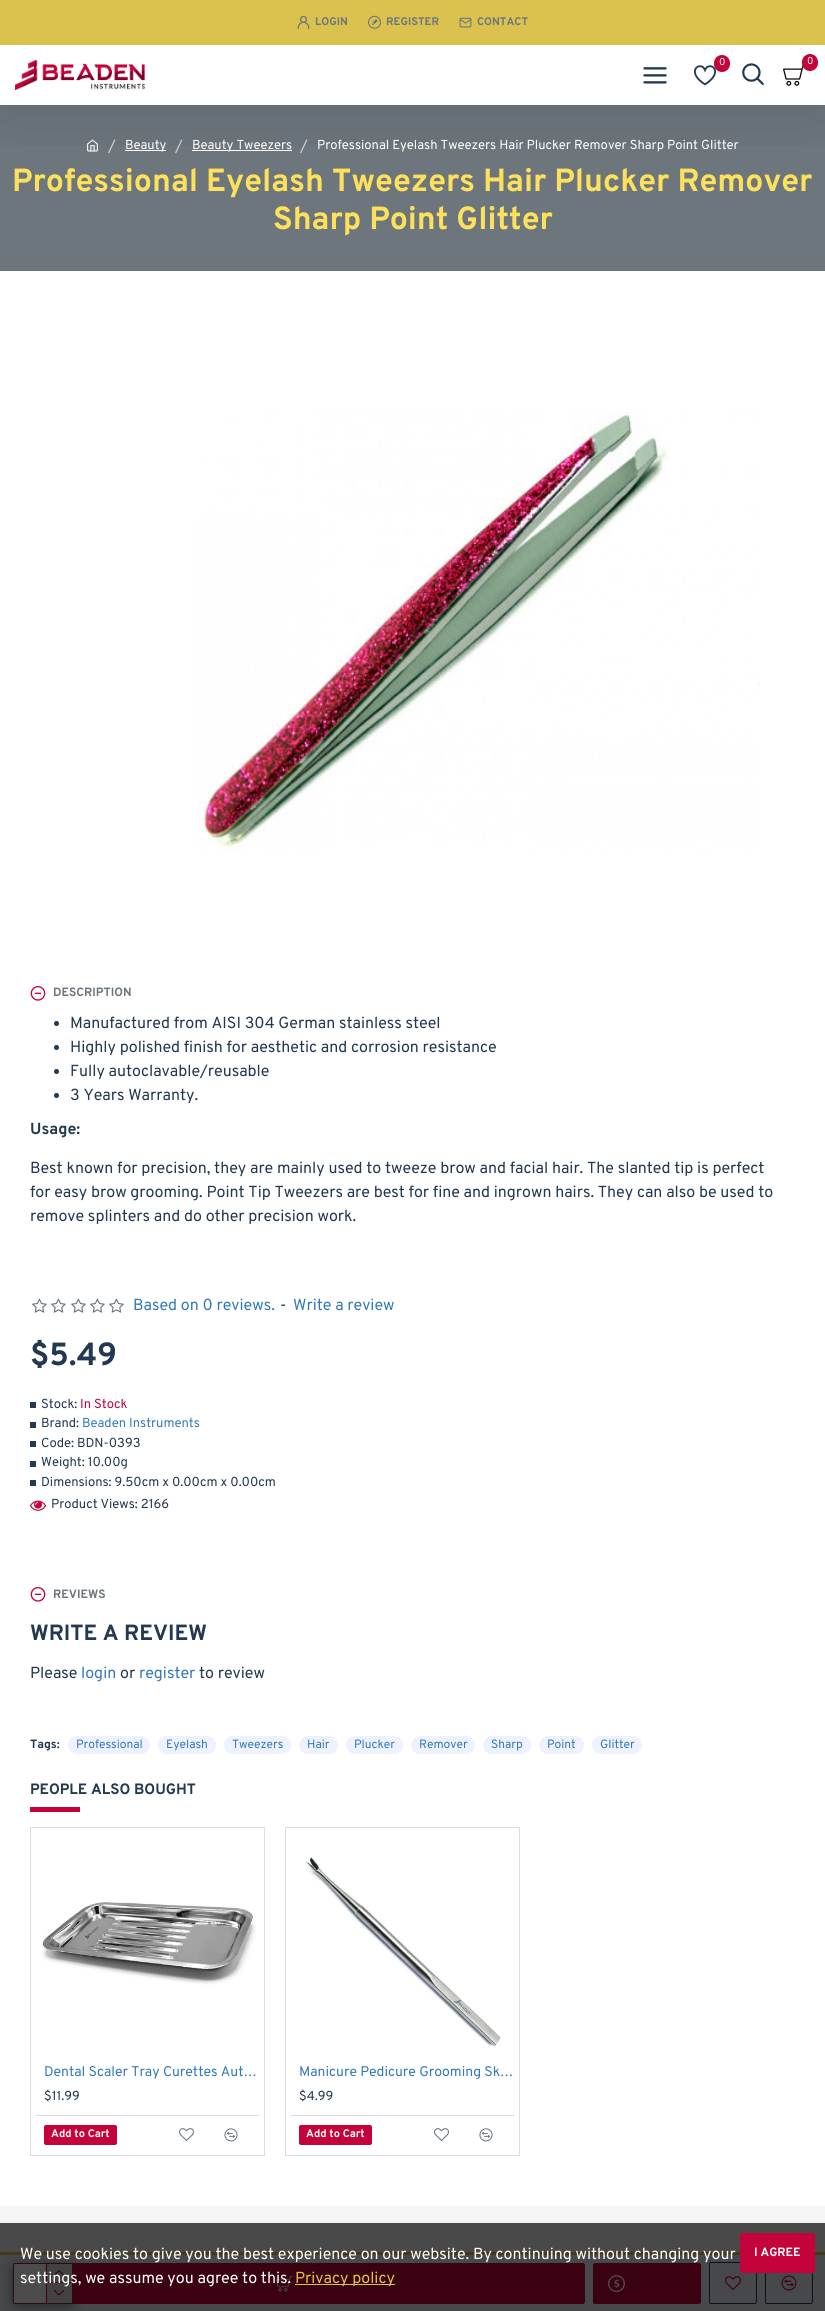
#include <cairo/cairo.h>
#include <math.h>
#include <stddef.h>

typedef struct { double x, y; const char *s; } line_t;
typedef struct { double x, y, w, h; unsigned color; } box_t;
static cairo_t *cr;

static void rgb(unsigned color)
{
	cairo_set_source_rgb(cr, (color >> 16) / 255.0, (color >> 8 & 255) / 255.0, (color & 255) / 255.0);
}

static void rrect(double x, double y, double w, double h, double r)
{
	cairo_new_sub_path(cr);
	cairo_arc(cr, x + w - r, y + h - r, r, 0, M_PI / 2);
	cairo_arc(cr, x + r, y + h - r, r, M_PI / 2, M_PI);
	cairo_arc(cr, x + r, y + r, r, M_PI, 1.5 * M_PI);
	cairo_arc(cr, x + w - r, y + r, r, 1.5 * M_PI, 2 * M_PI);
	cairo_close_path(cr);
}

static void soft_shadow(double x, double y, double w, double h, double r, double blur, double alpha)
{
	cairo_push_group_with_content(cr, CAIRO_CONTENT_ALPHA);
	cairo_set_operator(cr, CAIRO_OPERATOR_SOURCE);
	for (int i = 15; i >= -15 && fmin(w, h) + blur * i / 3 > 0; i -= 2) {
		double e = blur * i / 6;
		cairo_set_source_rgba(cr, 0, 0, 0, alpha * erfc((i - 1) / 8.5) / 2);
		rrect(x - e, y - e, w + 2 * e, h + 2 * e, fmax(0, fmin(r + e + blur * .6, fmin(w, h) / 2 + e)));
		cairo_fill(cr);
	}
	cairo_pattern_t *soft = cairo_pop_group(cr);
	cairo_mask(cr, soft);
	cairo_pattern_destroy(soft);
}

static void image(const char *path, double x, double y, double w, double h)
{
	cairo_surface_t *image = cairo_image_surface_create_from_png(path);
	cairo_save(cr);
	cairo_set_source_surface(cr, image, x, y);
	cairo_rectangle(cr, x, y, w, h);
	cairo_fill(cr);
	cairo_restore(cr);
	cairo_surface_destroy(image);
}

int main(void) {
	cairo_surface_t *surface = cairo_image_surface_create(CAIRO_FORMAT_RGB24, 825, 2311);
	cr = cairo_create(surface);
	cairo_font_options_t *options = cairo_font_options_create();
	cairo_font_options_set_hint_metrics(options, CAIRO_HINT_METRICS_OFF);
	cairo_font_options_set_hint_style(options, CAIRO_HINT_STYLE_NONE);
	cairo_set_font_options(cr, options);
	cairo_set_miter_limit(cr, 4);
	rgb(0xffffff);
	cairo_paint(cr);
	rgb(0x6d767d);
	cairo_rectangle(cr, 0, 105, 825, 166);
	cairo_fill(cr);
	image("img/9.png", 87, 139, 11, 13);
	rgb(0xffffff);
	cairo_rectangle(cr, 125, 150, 41, 1);
	cairo_fill(cr);
	cairo_rectangle(cr, 192, 150, 100, 1);
	cairo_fill(cr);
	cairo_save(cr);
	cairo_rectangle(cr, 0, 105, 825, 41);
	cairo_clip(cr);
	rgb(0x000000);
	soft_shadow(10, 55, 805, 40, 0, 42.5, 0.2);
	cairo_restore(cr);
	rgb(0xdbc24e);
	cairo_rectangle(cr, 0, 0, 825, 45);
	cairo_fill(cr);
	image("img/1.png", 297, 15, 13, 14);
	image("img/2.png", 368, 15, 13, 14);
	image("img/3.png", 459, 17, 13, 11);
	image("img/4.png", 15, 60, 131, 30);
	image("img/5.png", 694, 65, 22, 21);
	rgb(0xc4033a);
	rrect(714, 55, 16, 17, 8);
	cairo_fill(cr);
	image("img/6.png", 783, 64, 21, 22);
	rrect(802, 54, 16, 17, 8);
	cairo_fill(cr);
	image("img/7.png", 643, 67, 24, 17);
	image("img/8.png", 742, 63, 22, 22);
	image("img/10.png", 198, 409, 562, 442);
	image("img/11.png", 30, 986, 16, 15);
	rgb(0x233851);
	cairo_arc(cr, 56.5, 1023.5, 2.5, 0, 2 * M_PI);
	cairo_fill(cr);
	cairo_arc(cr, 56.5, 1047.5, 2.5, 0, 2 * M_PI);
	cairo_fill(cr);
	cairo_arc(cr, 56.5, 1071.5, 2.5, 0, 2 * M_PI);
	cairo_fill(cr);
	cairo_arc(cr, 56.5, 1095.5, 2.5, 0, 2 * M_PI);
	cairo_fill(cr);
	image("img/12.png", 32, 1298, 15, 15);
	image("img/12.png", 51, 1298, 15, 15);
	image("img/12.png", 71, 1298, 15, 15);
	image("img/12.png", 90, 1298, 15, 15);
	image("img/12.png", 109, 1298, 15, 15);
	{
		static const box_t items[] = {
			{30, 1402, 6, 6, 0x233851},
			{30, 1422, 6, 6, 0x233851},
			{30, 1441, 6, 6, 0x233851},
			{30, 1461, 6, 6, 0x233851},
			{30, 1480, 6, 6, 0x233851},
		};
		for (size_t i = 0; i < sizeof items / sizeof *items; i++) {
			rgb(items[i].color);
			cairo_rectangle(cr, items[i].x, items[i].y, items[i].w, items[i].h);
			cairo_fill(cr);
		}
	}
	image("img/13.png", 30, 1500, 16, 11);
	rgb(0xedf2fe);
	cairo_rectangle(cr, 0, 2255, 825, 56);
	cairo_fill(cr);
	rgb(0xdbc24e);
	cairo_rectangle(cr, 0, 2252, 825, 3);
	cairo_fill(cr);
	rrect(13.5, 2263.5, 59, 40, 1.5);
	rgb(0xc4033a);
	cairo_set_line_width(cr, 1);
	cairo_stroke(cr);
	rgb(0xf5f5f5);
	cairo_rectangle(cr, 0, 2206, 825, 46);
	cairo_fill(cr);
	rgb(0x555555);
	soft_shadow(16, 2268, 54, 35, 0, 7.5, 1);
	rgb(0xffffff);
	rrect(14, 2264, 58, 39, 2);
	cairo_fill(cr);
	rgb(0xc4033a);
	cairo_rectangle(cr, 46, 2264, 1, 39);
	cairo_fill(cr);
	rrect(71, 2263, 514, 41, 2);
	cairo_fill(cr);
	rgb(0xdddddd);
	cairo_rectangle(cr, 47, 2264, 25, 18);
	cairo_fill(cr);
	rgb(0xc4033a);
	cairo_rectangle(cr, 47, 2282, 25, 1);
	cairo_fill(cr);
	image("img/14.png", 54, 2270, 10, 6);
	rgb(0xdddddd);
	cairo_rectangle(cr, 47, 2283, 25, 20);
	cairo_fill(cr);
	image("img/15.png", 54, 2290, 10, 6);
	image("img/16.png", 276, 2276, 17, 16);
	rgb(0xc4033a);
	rrect(593, 2263, 108, 41, 2);
	cairo_fill(cr);
	image("img/17.png", 608, 2275, 17, 18);
	rrect(709.5, 2262.5, 47, 41, 1.5);
	rgb(0x233851);
	cairo_stroke(cr);
	image("img/18.png", 725, 2276, 16, 14);
	rrect(765.5, 2262.5, 47, 41, 1.5);
	cairo_stroke(cr);
	image("img/19.png", 781, 2275, 16, 16);
	image("img/11.png", 30, 1587, 16, 15);
	rgb(0xedf2fe);
	rrect(68, 1736, 82, 18, 9);
	cairo_fill(cr);
	rrect(158, 1736, 58, 18, 9);
	cairo_fill(cr);
	rrect(224, 1736, 67, 18, 9);
	cairo_fill(cr);
	rrect(299, 1736, 39, 18, 9);
	cairo_fill(cr);
	rrect(346, 1736, 57, 18, 9);
	cairo_fill(cr);
	rrect(411, 1736, 64, 18, 9);
	cairo_fill(cr);
	rrect(483, 1736, 48, 18, 9);
	cairo_fill(cr);
	rrect(539, 1736, 45, 18, 9);
	cairo_fill(cr);
	rrect(592, 1736, 50, 18, 9);
	cairo_fill(cr);
	rgb(0xc4033a);
	cairo_rectangle(cr, 30, 1807, 50, 5);
	cairo_fill(cr);
	cairo_rectangle(cr, 30.5, 1827.5, 234, 328);
	rgb(0xdddddd);
	cairo_stroke(cr);
	image("img/20.png", 41, 1902, 215, 83);
	cairo_rectangle(cr, 36, 2115, 223, 1);
	cairo_fill(cr);
	rgb(0xc4033a);
	rrect(44, 2125, 73, 20, 2);
	cairo_fill(cr);
	image("img/21.png", 179, 2128, 15, 13);
	image("img/22.png", 224, 2128, 14, 14);
	cairo_rectangle(cr, 285.5, 1827.5, 234, 328);
	rgb(0xdddddd);
	cairo_stroke(cr);
	image("img/23.png", 305, 1857, 196, 190);
	cairo_rectangle(cr, 291, 2115, 223, 1);
	cairo_fill(cr);
	rgb(0xc4033a);
	rrect(299, 2125, 73, 20, 2);
	cairo_fill(cr);
	image("img/21.png", 434, 2128, 15, 13);
	image("img/22.png", 479, 2128, 14, 14);
	cairo_set_source_rgba(cr, 0, 0, 0, 0.7);
	cairo_rectangle(cr, 0, 2223, 825, 88);
	cairo_fill(cr);
	rgb(0xdbc24e);
	cairo_rectangle(cr, 295, 2284, 100, 1);
	cairo_fill(cr);
	rgb(0xc4033a);
	rrect(740, 2233, 75, 40, 2);
	cairo_fill(cr);
	cairo_select_font_face(cr, "Overpass", CAIRO_FONT_SLANT_NORMAL, CAIRO_FONT_WEIGHT_BOLD);
	cairo_set_font_size(cr, 11);
	rgb(0x6d767d);
	{
		static const line_t items[] = {
			{315, 25, "LOGIN"},
			{386, 25, "REGISTER"},
			{477, 25, "CONTACT"},
		};
		for (size_t i = 0; i < sizeof items / sizeof *items; i++) {
			cairo_move_to(cr, items[i].x, items[i].y);
			cairo_show_text(cr, items[i].s);
		}
	}
	cairo_select_font_face(cr, "Overpass", CAIRO_FONT_SLANT_NORMAL, CAIRO_FONT_WEIGHT_NORMAL);
	cairo_set_font_size(cr, 10);
	rgb(0xffffff);
	cairo_move_to(cr, 719, 65);
	cairo_show_text(cr, "0");
	cairo_move_to(cr, 807, 64);
	cairo_show_text(cr, "0");
	cairo_set_font_size(cr, 16);
	rgb(0xcccccc);
	cairo_move_to(cr, 108, 151);
	cairo_show_text(cr, "/");
	cairo_set_font_size(cr, 13);
	rgb(0xffffff);
	cairo_move_to(cr, 125, 149);
	cairo_show_text(cr, "Beauty");
	cairo_set_font_size(cr, 16);
	rgb(0xcccccc);
	cairo_move_to(cr, 175, 151);
	cairo_show_text(cr, "/");
	cairo_set_font_size(cr, 13);
	rgb(0xffffff);
	cairo_move_to(cr, 192, 149);
	cairo_show_text(cr, "Beauty Tweezers");
	cairo_set_font_size(cr, 16);
	rgb(0xcccccc);
	cairo_move_to(cr, 300, 151);
	cairo_show_text(cr, "/");
	cairo_set_font_size(cr, 13);
	rgb(0xffffff);
	cairo_move_to(cr, 317, 149);
	cairo_show_text(cr, "Professional Eyelash Tweezers Hair Plucker Remover Sharp Point Glitter");
	cairo_select_font_face(cr, "Overpass", CAIRO_FONT_SLANT_NORMAL, CAIRO_FONT_WEIGHT_BOLD);
	cairo_set_font_size(cr, 32);
	rgb(0xfee15b);
	cairo_move_to(cr, 12, 191);
	cairo_show_text(cr, "Professional Eyelash Tweezers Hair Plucker Remover");
	cairo_move_to(cr, 273, 229);
	cairo_show_text(cr, "Sharp Point Glitter");
	cairo_set_font_size(cr, 12);
	rgb(0x6d767d);
	cairo_move_to(cr, 53, 996);
	cairo_show_text(cr, "DESCRIPTION");
	cairo_select_font_face(cr, "Overpass", CAIRO_FONT_SLANT_NORMAL, CAIRO_FONT_WEIGHT_NORMAL);
	cairo_set_font_size(cr, 16);
	rgb(0x233851);
	{
		static const line_t items[] = {
			{70, 1028, "Manufactured from AISI 304 German stainless steel"},
			{70, 1052, "Highly polished finish for aesthetic and corrosion resistance"},
			{70, 1076, "Fully autoclavable/reusable"},
			{70, 1100, "3 Years Warranty."},
		};
		for (size_t i = 0; i < sizeof items / sizeof *items; i++) {
			cairo_move_to(cr, items[i].x, items[i].y);
			cairo_show_text(cr, items[i].s);
		}
	}
	cairo_select_font_face(cr, "Overpass", CAIRO_FONT_SLANT_NORMAL, CAIRO_FONT_WEIGHT_BOLD);
	cairo_move_to(cr, 30, 1134);
	cairo_show_text(cr, "Usage:");
	cairo_select_font_face(cr, "Overpass", CAIRO_FONT_SLANT_NORMAL, CAIRO_FONT_WEIGHT_NORMAL);
	{
		static const line_t items[] = {
			{30, 1173, "Best known for precision, they are mainly used to tweeze brow and facial hair. The slanted tip is perfect"},
			{30, 1197, "for easy brow grooming. Point Tip Tweezers are best for fine and ingrown hairs. They can also be used to"},
			{30, 1221, "remove splinters and do other precision work."},
		};
		for (size_t i = 0; i < sizeof items / sizeof *items; i++) {
			cairo_move_to(cr, items[i].x, items[i].y);
			cairo_show_text(cr, items[i].s);
		}
	}
	rgb(0x337ab7);
	cairo_move_to(cr, 133, 1310);
	cairo_show_text(cr, "Based on 0 reviews.");
	rgb(0x233851);
	cairo_move_to(cr, 280, 1310);
	cairo_show_text(cr, "-");
	rgb(0x337ab7);
	cairo_move_to(cr, 293, 1310);
	cairo_show_text(cr, "Write a review");
	cairo_select_font_face(cr, "Overpass", CAIRO_FONT_SLANT_NORMAL, CAIRO_FONT_WEIGHT_BOLD);
	cairo_set_font_size(cr, 32);
	rgb(0x233851);
	cairo_move_to(cr, 30, 1365);
	cairo_show_text(cr, "$5.49");
	cairo_select_font_face(cr, "Overpass", CAIRO_FONT_SLANT_NORMAL, CAIRO_FONT_WEIGHT_NORMAL);
	cairo_set_font_size(cr, 13);
	cairo_move_to(cr, 41, 1408);
	cairo_show_text(cr, "Stock:");
	rgb(0xc4033a);
	cairo_move_to(cr, 80, 1408);
	cairo_show_text(cr, "In Stock");
	rgb(0x233851);
	cairo_move_to(cr, 41, 1427);
	cairo_show_text(cr, "Brand:");
	rgb(0x337ab7);
	cairo_move_to(cr, 82, 1427);
	cairo_show_text(cr, "Beaden Instruments");
	rgb(0x233851);
	{
		static const line_t items[] = {
			{41, 1447, "Code: BDN-0393"},
			{41, 1466, "Weight: 10.00g"},
			{41, 1486, "Dimensions: 9.50cm x 0.00cm x 0.00cm"},
			{51, 1508, "Product Views: 2166"},
		};
		for (size_t i = 0; i < sizeof items / sizeof *items; i++) {
			cairo_move_to(cr, items[i].x, items[i].y);
			cairo_show_text(cr, items[i].s);
		}
	}
	cairo_select_font_face(cr, "Overpass", CAIRO_FONT_SLANT_NORMAL, CAIRO_FONT_WEIGHT_BOLD);
	cairo_set_font_size(cr, 12);
	rgb(0x6d767d);
	cairo_move_to(cr, 53, 1598);
	cairo_show_text(cr, "REVIEWS");
	cairo_set_font_size(cr, 22);
	rgb(0x233851);
	cairo_move_to(cr, 30, 1640);
	cairo_show_text(cr, "WRITE A REVIEW");
	cairo_select_font_face(cr, "Overpass", CAIRO_FONT_SLANT_NORMAL, CAIRO_FONT_WEIGHT_NORMAL);
	cairo_set_font_size(cr, 16);
	cairo_move_to(cr, 30, 1678);
	cairo_show_text(cr, "Please");
	rgb(0x337ab7);
	cairo_move_to(cr, 81, 1678);
	cairo_show_text(cr, "login");
	rgb(0x233851);
	cairo_move_to(cr, 120, 1678);
	cairo_show_text(cr, "or");
	rgb(0x337ab7);
	cairo_move_to(cr, 139, 1678);
	cairo_show_text(cr, "register");
	rgb(0x233851);
	cairo_move_to(cr, 199, 1678);
	cairo_show_text(cr, "to review");
	cairo_select_font_face(cr, "Overpass", CAIRO_FONT_SLANT_NORMAL, CAIRO_FONT_WEIGHT_BOLD);
	cairo_set_font_size(cr, 12);
	cairo_move_to(cr, 30, 1748);
	cairo_show_text(cr, "Tags:");
	cairo_select_font_face(cr, "Overpass", CAIRO_FONT_SLANT_NORMAL, CAIRO_FONT_WEIGHT_NORMAL);
	rgb(0x337ab7);
	{
		static const line_t items[] = {
			{76, 1748, "Professional"},
			{166, 1748, "Eyelash"},
			{232, 1748, "Tweezers"},
			{307, 1748, "Hair"},
			{354, 1748, "Plucker"},
			{419, 1748, "Remover"},
			{491, 1748, "Sharp"},
			{547, 1748, "Point"},
			{600, 1748, "Glitter"},
		};
		for (size_t i = 0; i < sizeof items / sizeof *items; i++) {
			cairo_move_to(cr, items[i].x, items[i].y);
			cairo_show_text(cr, items[i].s);
		}
	}
	cairo_select_font_face(cr, "Overpass", CAIRO_FONT_SLANT_NORMAL, CAIRO_FONT_WEIGHT_BOLD);
	cairo_set_font_size(cr, 15);
	rgb(0x233851);
	cairo_move_to(cr, 30, 1794);
	cairo_show_text(cr, "PEOPLE ALSO BOUGHT");
	cairo_select_font_face(cr, "Overpass", CAIRO_FONT_SLANT_NORMAL, CAIRO_FONT_WEIGHT_NORMAL);
	cairo_set_font_size(cr, 14);
	rgb(0x337ab7);
	cairo_move_to(cr, 44, 2076);
	cairo_show_text(cr, "Dental Scaler Tray Curettes Aut…");
	cairo_set_font_size(cr, 13);
	rgb(0x233851);
	cairo_move_to(cr, 44, 2100);
	cairo_show_text(cr, "$11.99");
	cairo_select_font_face(cr, "Overpass", CAIRO_FONT_SLANT_NORMAL, CAIRO_FONT_WEIGHT_BOLD);
	cairo_set_font_size(cr, 11);
	rgb(0xffffff);
	cairo_move_to(cr, 51, 2137);
	cairo_show_text(cr, "Add to Cart");
	cairo_select_font_face(cr, "Overpass", CAIRO_FONT_SLANT_NORMAL, CAIRO_FONT_WEIGHT_NORMAL);
	cairo_set_font_size(cr, 14);
	rgb(0x337ab7);
	cairo_move_to(cr, 299, 2076);
	cairo_show_text(cr, "Manicure Pedicure Grooming Sk…");
	cairo_set_font_size(cr, 13);
	rgb(0x233851);
	cairo_move_to(cr, 299, 2100);
	cairo_show_text(cr, "$4.99");
	cairo_select_font_face(cr, "Overpass", CAIRO_FONT_SLANT_NORMAL, CAIRO_FONT_WEIGHT_BOLD);
	cairo_set_font_size(cr, 11);
	rgb(0xffffff);
	cairo_move_to(cr, 306, 2137);
	cairo_show_text(cr, "Add to Cart");
	cairo_select_font_face(cr, "Overpass", CAIRO_FONT_SLANT_NORMAL, CAIRO_FONT_WEIGHT_NORMAL);
	cairo_set_font_size(cr, 16);
	cairo_move_to(cr, 20, 2259);
	cairo_show_text(cr, "We use cookies to give you the best experience on our website. By continuing without changing your");
	cairo_move_to(cr, 20, 2283);
	cairo_show_text(cr, "settings, we assume you agree to this.");
	rgb(0xdbc24e);
	cairo_move_to(cr, 295, 2283);
	cairo_show_text(cr, "Privacy policy");
	cairo_select_font_face(cr, "Overpass", CAIRO_FONT_SLANT_NORMAL, CAIRO_FONT_WEIGHT_BOLD);
	cairo_set_font_size(cr, 12);
	rgb(0xffffff);
	cairo_move_to(cr, 754, 2256);
	cairo_show_text(cr, "I AGREE");
	cairo_surface_write_to_png(surface, "page.png");
	cairo_font_options_destroy(options);
	cairo_destroy(cr);
	cairo_surface_destroy(surface);
	return 0;
}
